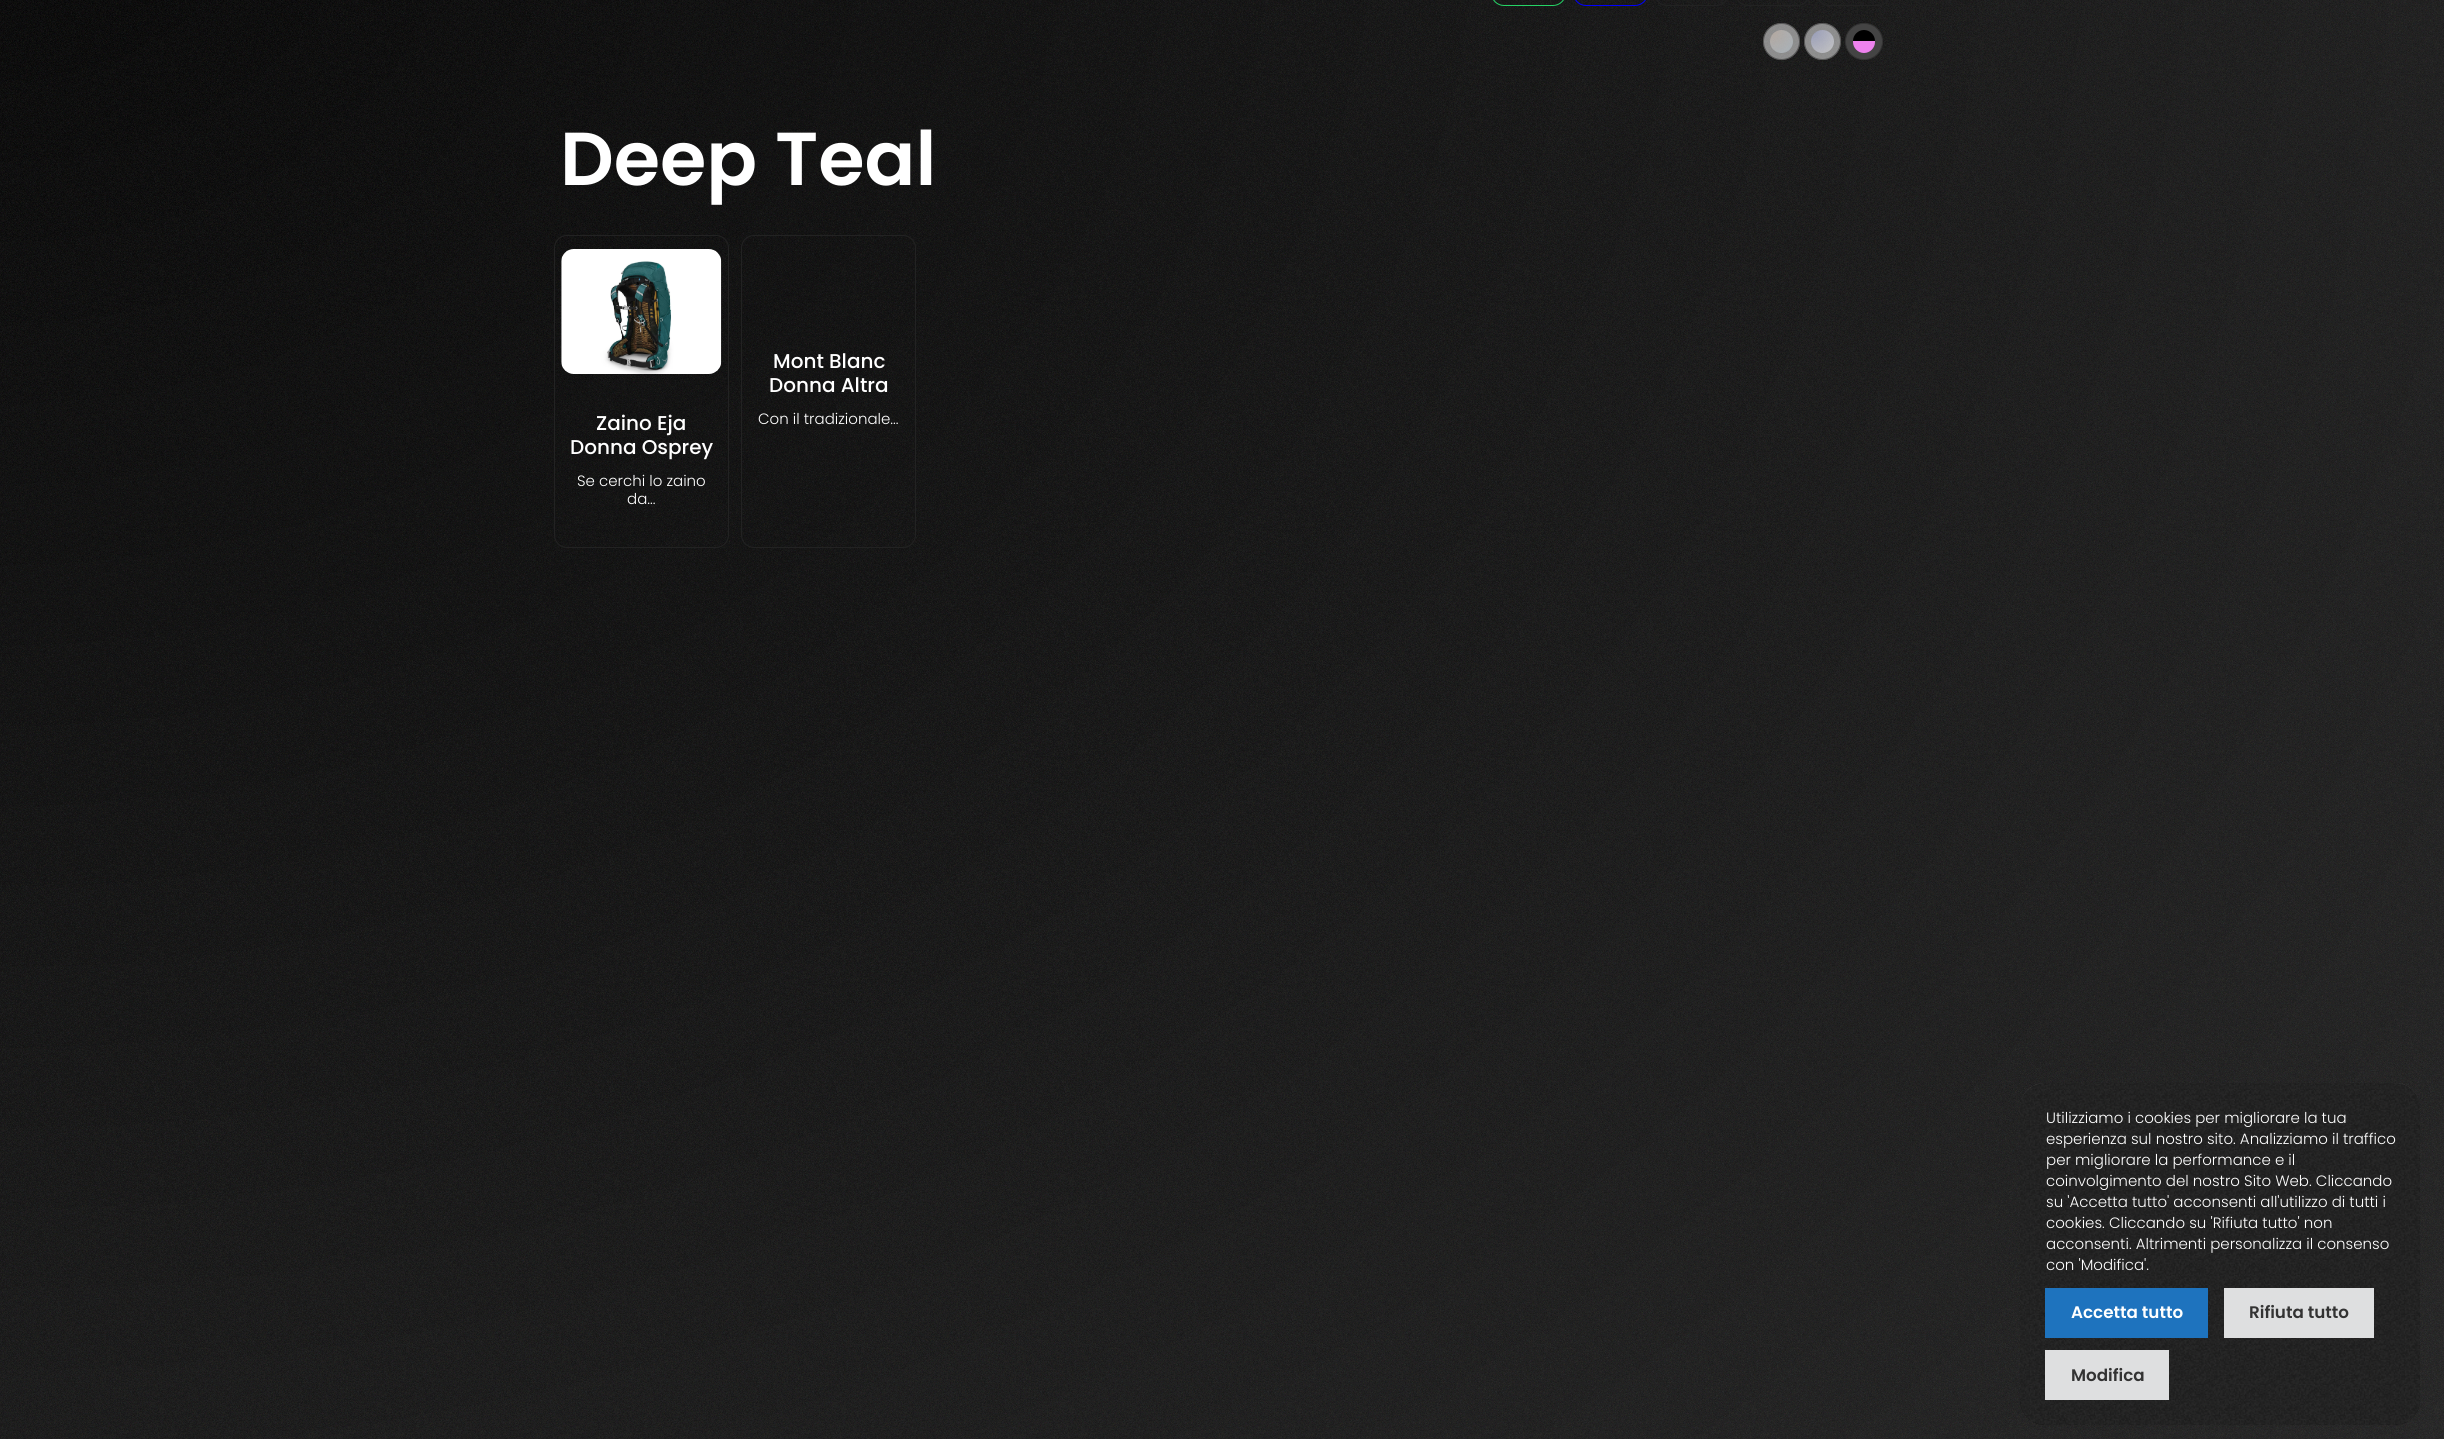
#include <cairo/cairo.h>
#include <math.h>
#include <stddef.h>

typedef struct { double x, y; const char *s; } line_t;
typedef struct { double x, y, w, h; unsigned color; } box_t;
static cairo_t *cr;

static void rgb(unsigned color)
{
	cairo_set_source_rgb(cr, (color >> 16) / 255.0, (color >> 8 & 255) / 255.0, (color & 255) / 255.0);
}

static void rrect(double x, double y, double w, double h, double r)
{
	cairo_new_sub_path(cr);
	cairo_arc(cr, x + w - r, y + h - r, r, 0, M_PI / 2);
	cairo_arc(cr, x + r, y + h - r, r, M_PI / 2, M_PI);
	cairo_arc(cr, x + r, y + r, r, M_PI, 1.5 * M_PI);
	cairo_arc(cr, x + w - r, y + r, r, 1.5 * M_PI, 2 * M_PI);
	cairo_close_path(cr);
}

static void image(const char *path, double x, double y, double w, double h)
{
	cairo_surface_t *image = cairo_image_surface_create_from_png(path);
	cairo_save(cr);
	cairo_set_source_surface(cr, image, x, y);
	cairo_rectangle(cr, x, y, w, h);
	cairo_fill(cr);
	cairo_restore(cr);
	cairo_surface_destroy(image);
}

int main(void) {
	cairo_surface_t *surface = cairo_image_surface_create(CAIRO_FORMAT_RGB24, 2444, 1439);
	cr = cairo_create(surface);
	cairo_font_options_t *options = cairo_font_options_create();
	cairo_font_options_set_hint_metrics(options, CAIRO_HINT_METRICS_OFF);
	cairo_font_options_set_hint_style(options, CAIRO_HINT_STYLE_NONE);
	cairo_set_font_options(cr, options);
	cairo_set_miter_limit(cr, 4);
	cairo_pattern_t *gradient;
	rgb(0xffffff);
	cairo_paint(cr);
	gradient = cairo_pattern_create_radial(0, 0, 0, 0, 0, 1);
	cairo_pattern_set_matrix(gradient, &(cairo_matrix_t){1.0 / 3458, 0, 0, 1.0 / 2767, -1.0 * 0 / 3458, -1.0 * -131 / 2767});
	cairo_pattern_add_color_stop_rgba(gradient, 0, 0, 0, 0, 1);
	cairo_pattern_add_color_stop_rgba(gradient, 1, 0.133, 0.133, 0.133, 1);
	cairo_set_source(cr, gradient);
	cairo_pattern_destroy(gradient);
	cairo_rectangle(cr, 0, 0, 2444, 1439);
	cairo_fill(cr);
	image("img/1.png", 0, 0, 2444, 1439);
	rrect(1491.5, -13.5, 74, 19, 12.5);
	rgb(0x25d366);
	cairo_set_line_width(cr, 1);
	cairo_stroke(cr);
	rrect(1573.5, -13.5, 74, 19, 12.5);
	rgb(0x0000ff);
	cairo_stroke(cr);
	rrect(1654.5, -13.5, 74, 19, 12.5);
	rgb(0x222222);
	cairo_stroke(cr);
	rrect(1735.5, -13.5, 74, 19, 12.5);
	cairo_stroke(cr);
	rrect(1816.5, -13.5, 74, 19, 12.5);
	cairo_stroke(cr);
	cairo_set_source_rgba(cr, 1, 1, 1, 0.5);
	cairo_arc(cr, 1781.5, 41.5, 18.5, 0, 2 * M_PI);
	cairo_fill(cr);
	cairo_arc(cr, 1781.5, 41.5, 18, 0, 2 * M_PI);
	cairo_set_source_rgba(cr, 0.133, 0.133, 0.133, 0.5);
	cairo_stroke(cr);
	gradient = cairo_pattern_create_radial(1770, 30, 0, 1770, 30, 32);
	cairo_pattern_add_color_stop_rgba(gradient, 0, 0.859, 0.761, 0.686, 0.5);
	cairo_pattern_add_color_stop_rgba(gradient, 1, 0.765, 0.839, 0.898, 0.5);
	cairo_set_source(cr, gradient);
	cairo_pattern_destroy(gradient);
	cairo_arc(cr, 1781.5, 41.5, 11.5, 0, 2 * M_PI);
	cairo_fill(cr);
	cairo_set_source_rgba(cr, 1, 1, 1, 0.5);
	cairo_arc(cr, 1822.5, 41.5, 18.5, 0, 2 * M_PI);
	cairo_fill(cr);
	cairo_arc(cr, 1822.5, 41.5, 18, 0, 2 * M_PI);
	cairo_set_source_rgba(cr, 0.133, 0.133, 0.133, 0.5);
	cairo_stroke(cr);
	gradient = cairo_pattern_create_radial(1811, 30, 0, 1811, 30, 32);
	cairo_pattern_add_color_stop_rgba(gradient, 0, 0.624, 0.659, 0.882, 0.5);
	cairo_pattern_add_color_stop_rgba(gradient, 1, 0.973, 0.973, 0.973, 0.5);
	cairo_set_source(cr, gradient);
	cairo_pattern_destroy(gradient);
	cairo_arc(cr, 1822.5, 41.5, 11.5, 0, 2 * M_PI);
	cairo_fill(cr);
	rgb(0x444444);
	rrect(1845.5, 23.5, 37, 36, 18);
	cairo_fill_preserve(cr);
	rgb(0x333333);
	cairo_stroke(cr);
	rgb(0x000000);
	cairo_new_path(cr);
	cairo_move_to(cr, 1864, 30);
	cairo_curve_to(cr, 1870, 30, 1875, 35, 1875, 41);
	cairo_line_to(cr, 1853, 41);
	cairo_curve_to(cr, 1853, 35, 1858, 30, 1864, 30);
	cairo_close_path(cr);
	cairo_fill(cr);
	rgb(0xee82ee);
	cairo_new_path(cr);
	cairo_move_to(cr, 1853, 41);
	cairo_line_to(cr, 1875, 41);
	cairo_line_to(cr, 1875, 42);
	cairo_curve_to(cr, 1875, 48, 1870, 53, 1864, 53);
	cairo_curve_to(cr, 1858, 53, 1853, 48, 1853, 42);
	cairo_close_path(cr);
	cairo_fill(cr);
	rrect(741.5, 235.5, 174, 312, 12.5);
	rgb(0x222222);
	cairo_stroke(cr);
	rrect(554.5, 235.5, 174, 312, 12.5);
	cairo_stroke(cr);
	image("img/2.png", 561, 249, 161, 125);
	cairo_set_source_rgba(cr, 0, 0, 0, 0.9);
	rrect(2020, 1083, 400, 342, 25);
	cairo_fill(cr);
	image("img/3.png", 2020, 1083, 400, 342);
	{
		static const box_t items[] = {
			{2045, 1288, 163, 50, 0x1e73be},
			{2224, 1288, 150, 50, 0xdedfe0},
			{2045, 1350, 124, 50, 0xdedfe0},
		};
		for (size_t i = 0; i < sizeof items / sizeof *items; i++) {
			rgb(items[i].color);
			cairo_rectangle(cr, items[i].x, items[i].y, items[i].w, items[i].h);
			cairo_fill(cr);
		}
	}
	cairo_select_font_face(cr, "Poppins SemiBold", CAIRO_FONT_SLANT_NORMAL, CAIRO_FONT_WEIGHT_NORMAL);
	cairo_set_font_size(cr, 75);
	rgb(0xffffff);
	cairo_move_to(cr, 560, 185);
	cairo_show_text(cr, "Deep Teal");
	cairo_select_font_face(cr, "Poppins Medium", CAIRO_FONT_SLANT_NORMAL, CAIRO_FONT_WEIGHT_NORMAL);
	cairo_set_font_size(cr, 20);
	cairo_move_to(cr, 773, 368);
	cairo_show_text(cr, "Mont Blanc");
	cairo_move_to(cr, 769, 392);
	cairo_show_text(cr, "Donna Altra");
	cairo_select_font_face(cr, "Poppins Light", CAIRO_FONT_SLANT_NORMAL, CAIRO_FONT_WEIGHT_NORMAL);
	cairo_set_font_size(cr, 15);
	cairo_move_to(cr, 758, 424);
	cairo_show_text(cr, "Con il tradizionale...");
	cairo_select_font_face(cr, "Poppins Medium", CAIRO_FONT_SLANT_NORMAL, CAIRO_FONT_WEIGHT_NORMAL);
	cairo_set_font_size(cr, 20);
	cairo_move_to(cr, 596, 430);
	cairo_show_text(cr, "Zaino Eja");
	cairo_move_to(cr, 570, 454);
	cairo_show_text(cr, "Donna Osprey");
	cairo_select_font_face(cr, "Poppins Light", CAIRO_FONT_SLANT_NORMAL, CAIRO_FONT_WEIGHT_NORMAL);
	cairo_set_font_size(cr, 15);
	{
		static const line_t items[] = {
			{577, 486, "Se cerchi lo zaino"},
			{627, 504, "da..."},
			{2046, 1123, "Utilizziamo i cookies per migliorare la tua"},
			{2046, 1144, "esperienza sul nostro sito. Analizziamo il traffico"},
			{2046, 1165, "per migliorare la performance e il"},
			{2046, 1186, "coinvolgimento del nostro Sito Web. Cliccando"},
			{2046, 1207, "su 'Accetta tutto' acconsenti all'utilizzo di tutti i"},
			{2046, 1228, "cookies. Cliccando su 'Rifiuta tutto' non"},
			{2046, 1249, "acconsenti. Altrimenti personalizza il consenso"},
			{2046, 1270, "con 'Modifica'."},
		};
		for (size_t i = 0; i < sizeof items / sizeof *items; i++) {
			cairo_move_to(cr, items[i].x, items[i].y);
			cairo_show_text(cr, items[i].s);
		}
	}
	cairo_select_font_face(cr, "Poppins SemiBold", CAIRO_FONT_SLANT_NORMAL, CAIRO_FONT_WEIGHT_NORMAL);
	cairo_set_font_size(cr, 16.75);
	cairo_move_to(cr, 2071, 1318);
	cairo_show_text(cr, "Accetta tutto");
	rgb(0x333333);
	cairo_move_to(cr, 2249, 1318);
	cairo_show_text(cr, "Rifiuta tutto");
	cairo_move_to(cr, 2071, 1381);
	cairo_show_text(cr, "Modifica");
	cairo_surface_write_to_png(surface, "page.png");
	cairo_font_options_destroy(options);
	cairo_destroy(cr);
	cairo_surface_destroy(surface);
	return 0;
}
